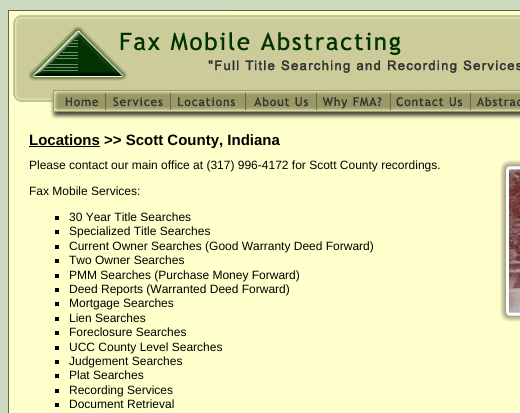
#include <cairo/cairo.h>
#include <math.h>
#include <stddef.h>

typedef struct { double x, y; const char *s; } line_t;
typedef struct { double x, y, w, h; unsigned color; } box_t;
static cairo_t *cr;

static void rgb(unsigned color)
{
	cairo_set_source_rgb(cr, (color >> 16) / 255.0, (color >> 8 & 255) / 255.0, (color & 255) / 255.0);
}

static void image(const char *path, double x, double y, double w, double h)
{
	cairo_surface_t *image = cairo_image_surface_create_from_png(path);
	cairo_save(cr);
	cairo_set_source_surface(cr, image, x, y);
	cairo_rectangle(cr, x, y, w, h);
	cairo_fill(cr);
	cairo_restore(cr);
	cairo_surface_destroy(image);
}

int main(void) {
	cairo_surface_t *surface = cairo_image_surface_create(CAIRO_FORMAT_RGB24, 520, 413);
	cr = cairo_create(surface);
	cairo_font_options_t *options = cairo_font_options_create();
	cairo_font_options_set_hint_metrics(options, CAIRO_HINT_METRICS_OFF);
	cairo_font_options_set_hint_style(options, CAIRO_HINT_STYLE_NONE);
	cairo_set_font_options(cr, options);
	cairo_set_miter_limit(cr, 4);
	rgb(0xccd9bf);
	cairo_paint(cr);
	rgb(0xffffcc);
	cairo_rectangle(cr, 8.5, 10.5, 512, 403);
	cairo_fill_preserve(cr);
	rgb(0x666633);
	cairo_set_line_width(cr, 1);
	cairo_stroke(cr);
	image("img/1.png", 9, 11, 225, 80);
	image("img/2.png", 234, 15, 285, 76);
	image("img/3.png", 519, 15, 1, 76);
	image("img/4.png", 13, 91, 40, 21);
	image("img/5.png", 53, 91, 52, 21);
	image("img/6.png", 105, 91, 65, 21);
	image("img/7.png", 170, 91, 75, 21);
	image("img/8.png", 245, 91, 71, 21);
	image("img/9.png", 316, 91, 74, 21);
	image("img/10.png", 390, 91, 80, 21);
	image("img/11.png", 470, 91, 50, 21);
	image("img/12.png", 50, 112, 470, 8);
	rgb(0x000000);
	cairo_rectangle(cr, 29, 146, 71, 1);
	cairo_fill(cr);
	image("img/13.png", 499, 160, 21, 163);
	{
		static const box_t items[] = {
			{55, 216, 4, 4, 0x000000},
			{55, 230, 4, 4, 0x000000},
			{55, 245, 4, 4, 0x000000},
			{55, 259, 4, 4, 0x000000},
			{55, 274, 4, 4, 0x000000},
			{55, 288, 4, 4, 0x000000},
			{55, 302, 4, 4, 0x000000},
			{55, 317, 4, 4, 0x000000},
			{55, 331, 4, 4, 0x000000},
			{55, 346, 4, 4, 0x000000},
			{55, 360, 4, 4, 0x000000},
			{55, 374, 4, 4, 0x000000},
			{55, 389, 4, 4, 0x000000},
			{55, 403, 4, 4, 0x000000},
		};
		for (size_t i = 0; i < sizeof items / sizeof *items; i++) {
			rgb(items[i].color);
			cairo_rectangle(cr, items[i].x, items[i].y, items[i].w, items[i].h);
			cairo_fill(cr);
		}
	}
	cairo_select_font_face(cr, "Liberation Sans", CAIRO_FONT_SLANT_NORMAL, CAIRO_FONT_WEIGHT_BOLD);
	cairo_set_font_size(cr, 15);
	cairo_move_to(cr, 29, 145);
	cairo_show_text(cr, "Locations >> Scott County, Indiana");
	cairo_select_font_face(cr, "Liberation Sans", CAIRO_FONT_SLANT_NORMAL, CAIRO_FONT_WEIGHT_NORMAL);
	cairo_set_font_size(cr, 12);
	{
		static const line_t items[] = {
			{29, 169, "Please contact our main office at (317) 996-4172 for Scott County recordings."},
			{29, 195, "Fax Mobile Services:"},
			{69, 221, "30 Year Title Searches"},
			{69, 235, "Specialized Title Searches"},
			{69, 250, "Current Owner Searches (Good Warranty Deed Forward)"},
			{69, 264, "Two Owner Searches"},
			{69, 279, "PMM Searches (Purchase Money Forward)"},
			{69, 293, "Deed Reports (Warranted Deed Forward)"},
			{69, 307, "Mortgage Searches"},
			{69, 322, "Lien Searches"},
			{69, 336, "Foreclosure Searches"},
			{69, 351, "UCC County Level Searches"},
			{69, 365, "Judgement Searches"},
			{69, 379, "Plat Searches"},
			{69, 394, "Recording Services"},
			{69, 408, "Document Retrieval"},
		};
		for (size_t i = 0; i < sizeof items / sizeof *items; i++) {
			cairo_move_to(cr, items[i].x, items[i].y);
			cairo_show_text(cr, items[i].s);
		}
	}
	cairo_surface_write_to_png(surface, "page.png");
	cairo_font_options_destroy(options);
	cairo_destroy(cr);
	cairo_surface_destroy(surface);
	return 0;
}
